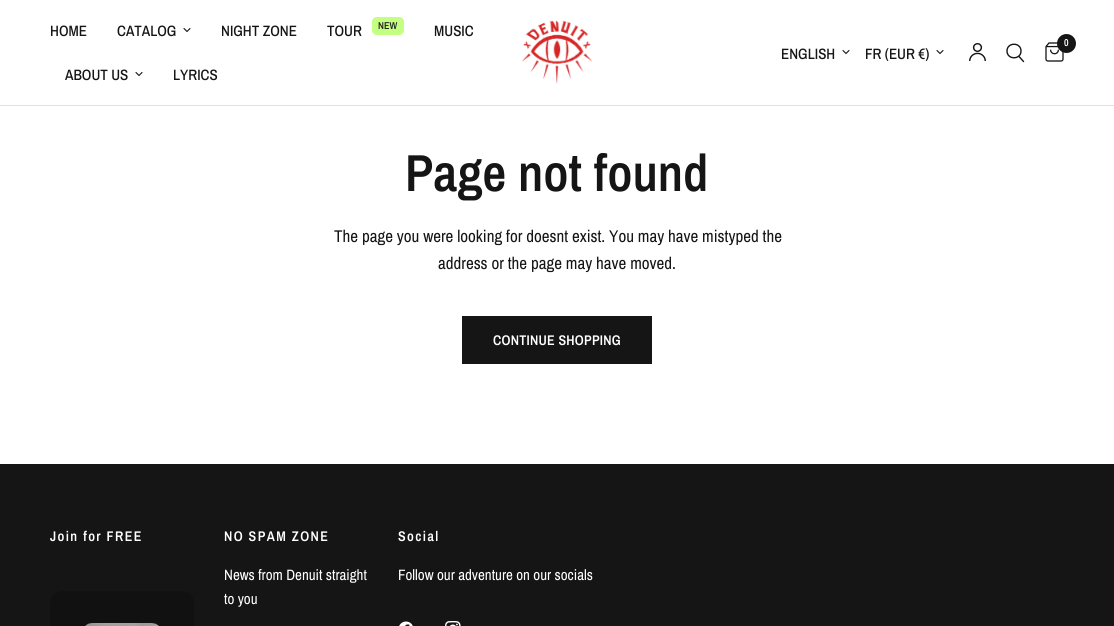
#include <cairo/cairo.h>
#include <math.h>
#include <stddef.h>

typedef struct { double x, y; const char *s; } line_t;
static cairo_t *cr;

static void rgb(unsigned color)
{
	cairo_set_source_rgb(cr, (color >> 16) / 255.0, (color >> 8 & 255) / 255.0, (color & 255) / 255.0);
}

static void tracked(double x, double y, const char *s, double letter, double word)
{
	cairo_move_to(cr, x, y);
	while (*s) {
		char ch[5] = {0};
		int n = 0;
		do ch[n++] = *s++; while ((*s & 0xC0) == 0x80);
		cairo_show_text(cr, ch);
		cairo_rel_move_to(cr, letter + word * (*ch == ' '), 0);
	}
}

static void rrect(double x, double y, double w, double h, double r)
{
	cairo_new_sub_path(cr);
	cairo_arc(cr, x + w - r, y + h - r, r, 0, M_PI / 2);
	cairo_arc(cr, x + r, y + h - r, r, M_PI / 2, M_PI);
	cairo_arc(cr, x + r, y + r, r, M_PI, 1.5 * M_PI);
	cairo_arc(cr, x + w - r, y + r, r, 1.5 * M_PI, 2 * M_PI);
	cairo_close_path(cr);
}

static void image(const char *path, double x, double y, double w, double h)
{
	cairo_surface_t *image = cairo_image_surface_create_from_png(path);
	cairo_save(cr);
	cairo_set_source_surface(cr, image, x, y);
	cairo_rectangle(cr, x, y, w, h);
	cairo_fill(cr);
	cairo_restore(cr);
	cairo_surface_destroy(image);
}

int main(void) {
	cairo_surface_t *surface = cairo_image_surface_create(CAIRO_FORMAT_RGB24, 1114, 626);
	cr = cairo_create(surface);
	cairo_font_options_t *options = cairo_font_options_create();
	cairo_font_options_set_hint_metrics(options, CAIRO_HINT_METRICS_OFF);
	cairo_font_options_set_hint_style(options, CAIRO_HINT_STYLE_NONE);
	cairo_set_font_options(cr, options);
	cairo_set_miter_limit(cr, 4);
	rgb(0xffffff);
	cairo_paint(cr);
	rgb(0xe2e2e2);
	cairo_rectangle(cr, 0, 105, 1114, 1);
	cairo_fill(cr);
	cairo_new_path(cr);
	cairo_move_to(cr, 190, 28.5);
	cairo_line_to(cr, 187, 31.5);
	cairo_line_to(cr, 184, 28.5);
	rgb(0x151515);
	cairo_set_line_width(cr, 1.1);
	cairo_set_line_cap(cr, CAIRO_LINE_CAP_ROUND);
	cairo_set_line_join(cr, CAIRO_LINE_JOIN_ROUND);
	cairo_stroke(cr);
	rgb(0xc3ff81);
	rrect(372, 17, 32, 18, 5);
	cairo_fill(cr);
	cairo_new_path(cr);
	cairo_move_to(cr, 142, 72.5);
	cairo_line_to(cr, 139, 75.5);
	cairo_line_to(cr, 136, 72.5);
	rgb(0x151515);
	cairo_stroke(cr);
	image("img/1.png", 522, 20, 70, 64);
	cairo_new_path(cr);
	cairo_move_to(cr, 849, 50.5);
	cairo_line_to(cr, 846, 53.5);
	cairo_line_to(cr, 843, 50.5);
	cairo_stroke(cr);
	cairo_new_path(cr);
	cairo_move_to(cr, 943, 50.5);
	cairo_line_to(cr, 940, 53.5);
	cairo_line_to(cr, 937, 50.5);
	cairo_stroke(cr);
	image("img/2.png", 969, 43, 17, 18);
	cairo_new_path(cr);
	cairo_move_to(cr, 1019, 56.5);
	cairo_line_to(cr, 1023.5, 61.5);
	cairo_move_to(cr, 1021, 51);
	cairo_curve_to(cr, 1021, 60, 1007, 60, 1007, 51);
	cairo_curve_to(cr, 1007, 42, 1021, 42, 1021, 51);
	cairo_close_path(cr);
	cairo_set_line_width(cr, 1.4);
	cairo_stroke(cr);
	image("img/3.png", 1045, 42, 19, 20);
	cairo_arc(cr, 1066.5, 43.5, 9.5, 0, 2 * M_PI);
	cairo_fill(cr);
	cairo_rectangle(cr, 462, 316, 190, 48);
	cairo_fill(cr);
	cairo_rectangle(cr, 0, 464, 1114, 162);
	cairo_fill(cr);
	rgb(0x111111);
	rrect(50, 591, 144, 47, 12);
	cairo_fill(cr);
	image("img/4.png", 85, 623, 74, 3);
	image("img/5.png", 399, 621, 14, 5);
	image("img/6.png", 445, 621, 16, 5);
	cairo_select_font_face(cr, "Archivo Narrow Medium", CAIRO_FONT_SLANT_NORMAL, CAIRO_FONT_WEIGHT_NORMAL);
	cairo_set_font_size(cr, 15);
	rgb(0x151515);
	{
		static const line_t items[] = {
			{50, 36, "HOME"},
			{117, 36, "CATALOG"},
			{221, 36, "NIGHT ZONE"},
			{327, 36, "TOUR"},
		};
		for (size_t i = 0; i < sizeof items / sizeof *items; i++) {
			cairo_move_to(cr, items[i].x, items[i].y);
			cairo_show_text(cr, items[i].s);
		}
	}
	cairo_select_font_face(cr, "Archivo Narrow SemiBold", CAIRO_FONT_SLANT_NORMAL, CAIRO_FONT_WEIGHT_NORMAL);
	cairo_set_font_size(cr, 10);
	rgb(0x272422);
	cairo_move_to(cr, 378, 29);
	cairo_show_text(cr, "NEW");
	cairo_select_font_face(cr, "Archivo Narrow Medium", CAIRO_FONT_SLANT_NORMAL, CAIRO_FONT_WEIGHT_NORMAL);
	cairo_set_font_size(cr, 15);
	rgb(0x151515);
	{
		static const line_t items[] = {
			{434, 36, "MUSIC"},
			{65, 80, "ABOUT US"},
			{173, 80, "LYRICS"},
			{781, 59, "ENGLISH"},
		};
		for (size_t i = 0; i < sizeof items / sizeof *items; i++) {
			cairo_move_to(cr, items[i].x, items[i].y);
			cairo_show_text(cr, items[i].s);
		}
	}
	cairo_save(cr);
	cairo_rectangle(cr, 865, 46, 67, 15);
	cairo_clip(cr);
	cairo_move_to(cr, 865, 59);
	cairo_show_text(cr, "FR (EUR €)");
	cairo_restore(cr);
	cairo_select_font_face(cr, "Archivo Narrow SemiBold", CAIRO_FONT_SLANT_NORMAL, CAIRO_FONT_WEIGHT_NORMAL);
	cairo_set_font_size(cr, 10);
	rgb(0xffffff);
	cairo_move_to(cr, 1064, 46);
	cairo_show_text(cr, "0");
	cairo_set_font_size(cr, 52);
	rgb(0x151515);
	cairo_move_to(cr, 405, 191);
	cairo_show_text(cr, "Page not found");
	cairo_select_font_face(cr, "Archivo Narrow", CAIRO_FONT_SLANT_NORMAL, CAIRO_FONT_WEIGHT_NORMAL);
	cairo_set_font_size(cr, 17);
	cairo_move_to(cr, 334, 242);
	cairo_show_text(cr, "The page you were looking for doesnt exist. You may have mistyped the");
	cairo_move_to(cr, 438, 269);
	cairo_show_text(cr, "address or the page may have moved.");
	cairo_select_font_face(cr, "Archivo Narrow SemiBold", CAIRO_FONT_SLANT_NORMAL, CAIRO_FONT_WEIGHT_NORMAL);
	cairo_set_font_size(cr, 14);
	rgb(0xffffff);
	tracked(493, 345, "CONTINUE SHOPPING", 0.25, 0);
	tracked(50, 541, "Join for FREE", 1.4, 0);
	tracked(224, 541, "NO SPAM ZONE", 1.4, 0);
	cairo_select_font_face(cr, "Archivo Narrow", CAIRO_FONT_SLANT_NORMAL, CAIRO_FONT_WEIGHT_NORMAL);
	cairo_set_font_size(cr, 15);
	cairo_move_to(cr, 224, 580);
	cairo_show_text(cr, "News from Denuit straight");
	cairo_move_to(cr, 224, 604);
	cairo_show_text(cr, "to you");
	cairo_select_font_face(cr, "Archivo Narrow SemiBold", CAIRO_FONT_SLANT_NORMAL, CAIRO_FONT_WEIGHT_NORMAL);
	cairo_set_font_size(cr, 14);
	tracked(398, 541, "Social", 1.4, 0);
	cairo_select_font_face(cr, "Archivo Narrow", CAIRO_FONT_SLANT_NORMAL, CAIRO_FONT_WEIGHT_NORMAL);
	cairo_set_font_size(cr, 15);
	cairo_move_to(cr, 398, 580);
	cairo_show_text(cr, "Follow our adventure on our socials");
	cairo_surface_write_to_png(surface, "page.png");
	cairo_font_options_destroy(options);
	cairo_destroy(cr);
	cairo_surface_destroy(surface);
	return 0;
}
